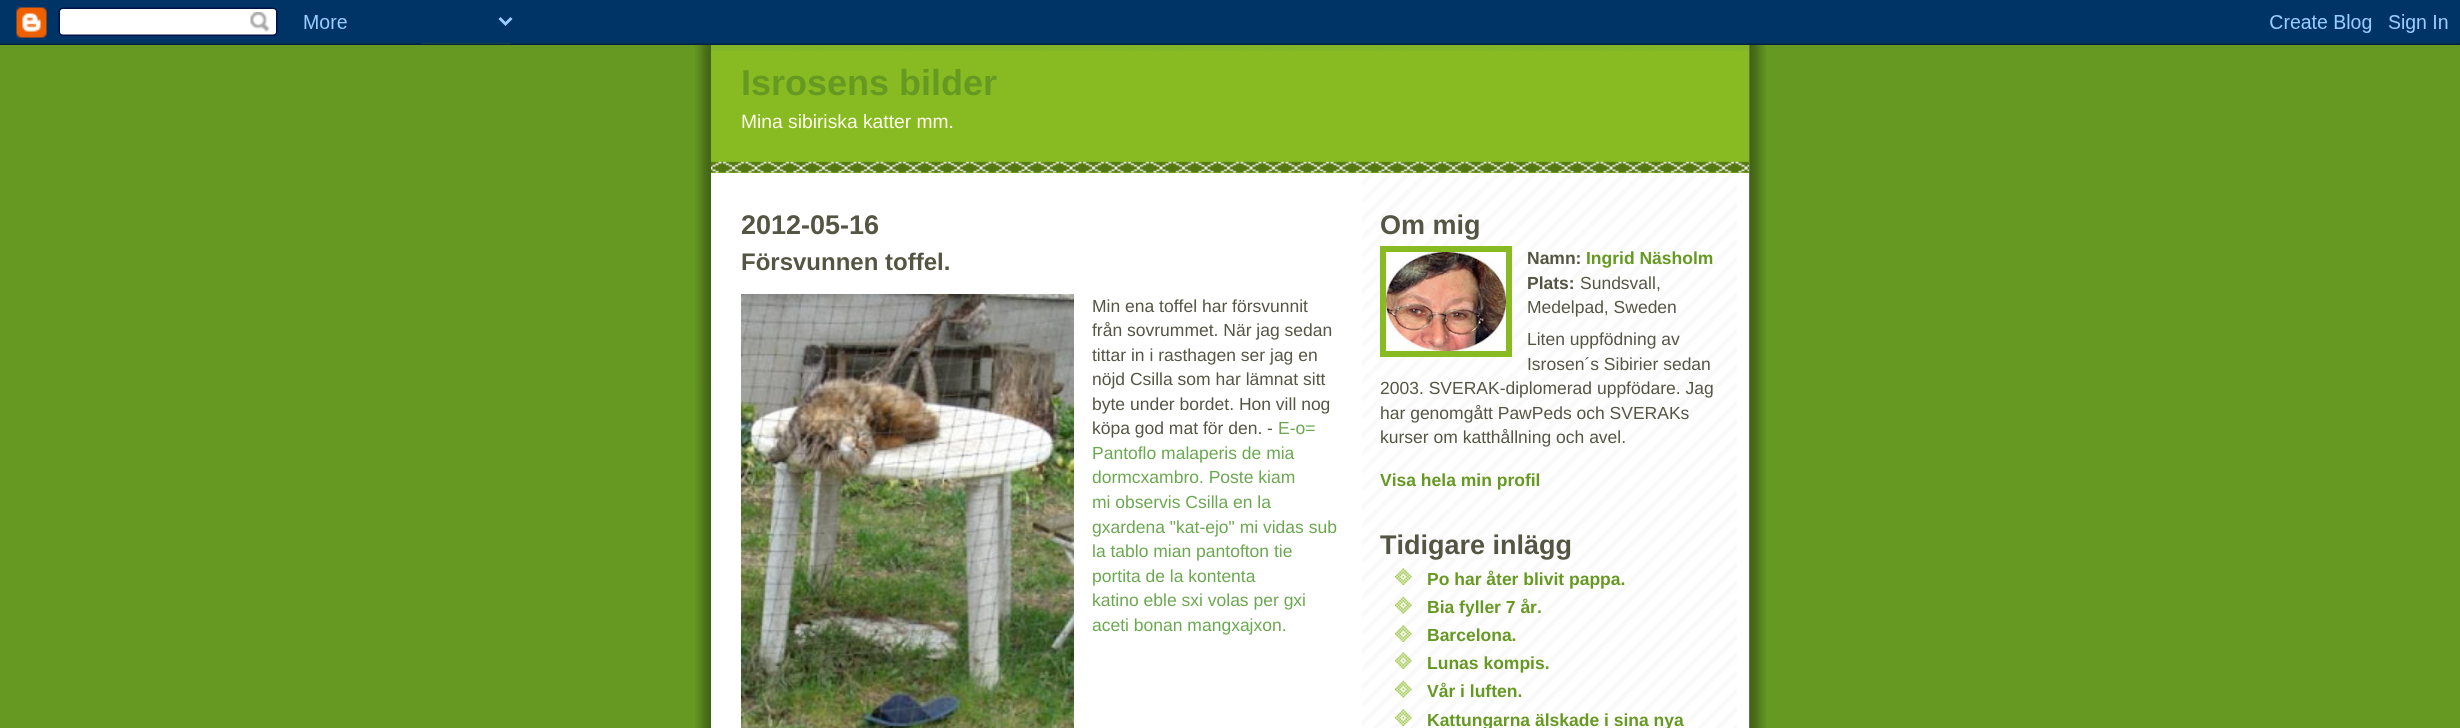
#include <cairo/cairo.h>
#include <math.h>
#include <stddef.h>

typedef struct { double x, y; const char *s; } line_t;
static cairo_t *cr;

static void rgb(unsigned color)
{
	cairo_set_source_rgb(cr, (color >> 16) / 255.0, (color >> 8 & 255) / 255.0, (color & 255) / 255.0);
}

static void image(const char *path, double x, double y, double w, double h)
{
	cairo_surface_t *image = cairo_image_surface_create_from_png(path);
	cairo_save(cr);
	cairo_set_source_surface(cr, image, x, y);
	cairo_rectangle(cr, x, y, w, h);
	cairo_fill(cr);
	cairo_restore(cr);
	cairo_surface_destroy(image);
}

int main(void) {
	cairo_surface_t *surface = cairo_image_surface_create(CAIRO_FORMAT_RGB24, 2460, 728);
	cr = cairo_create(surface);
	cairo_font_options_t *options = cairo_font_options_create();
	cairo_font_options_set_hint_metrics(options, CAIRO_HINT_METRICS_OFF);
	cairo_font_options_set_hint_style(options, CAIRO_HINT_STYLE_NONE);
	cairo_set_font_options(cr, options);
	cairo_set_miter_limit(cr, 4);
	rgb(0x669922);
	cairo_paint(cr);
	image("img/1.png", 695, 43, 1071, 685);
	image("img/5.png", 711, 43, 1038, 8);
	image("img/2.png", 0, 0, 2460, 45);
	rgb(0xffffff);
	cairo_rectangle(cr, 711, 173, 1038, 555);
	cairo_fill(cr);
	image("img/3.png", 1362, 173, 375, 555);
	rgb(0x88bb22);
	cairo_rectangle(cr, 711, 51, 1038, 122);
	cairo_fill(cr);
	image("img/4.png", 711, 161, 1038, 12);
	image("img/6.png", 741, 294, 333, 434);
	cairo_rectangle(cr, 1383, 249, 126, 105);
	cairo_set_line_width(cr, 6);
	cairo_stroke(cr);
	image("img/7.png", 1386, 252, 120, 99);
	image("img/8.png", 1395, 568, 17, 17);
	image("img/9.png", 1395, 596, 17, 18);
	image("img/10.png", 1395, 625, 17, 17);
	image("img/11.png", 1395, 652, 17, 17);
	image("img/12.png", 1395, 680, 17, 18);
	image("img/13.png", 1395, 709, 17, 17);
	cairo_select_font_face(cr, "Liberation Sans", CAIRO_FONT_SLANT_NORMAL, CAIRO_FONT_WEIGHT_BOLD);
	cairo_set_font_size(cr, 36);
	rgb(0x669922);
	cairo_move_to(cr, 741, 95);
	cairo_show_text(cr, "Isrosens bilder");
	cairo_select_font_face(cr, "Liberation Sans", CAIRO_FONT_SLANT_NORMAL, CAIRO_FONT_WEIGHT_NORMAL);
	cairo_set_font_size(cr, 19.25);
	rgb(0xffffee);
	cairo_move_to(cr, 741, 128);
	cairo_show_text(cr, "Mina sibiriska katter mm.");
	cairo_select_font_face(cr, "Liberation Sans", CAIRO_FONT_SLANT_NORMAL, CAIRO_FONT_WEIGHT_BOLD);
	cairo_set_font_size(cr, 27);
	rgb(0x555544);
	cairo_move_to(cr, 741, 234);
	cairo_show_text(cr, "2012-05-16");
	cairo_set_font_size(cr, 24);
	cairo_move_to(cr, 741, 270);
	cairo_show_text(cr, "Försvunnen toffel.");
	cairo_select_font_face(cr, "Liberation Sans", CAIRO_FONT_SLANT_NORMAL, CAIRO_FONT_WEIGHT_NORMAL);
	cairo_set_font_size(cr, 17.5);
	{
		static const line_t items[] = {
			{1092, 312, "Min ena toffel har försvunnit"},
			{1092, 336, "från sovrummet. När jag sedan"},
			{1092, 361, "tittar in i rasthagen ser jag en"},
			{1092, 385, "nöjd Csilla som har lämnat sitt"},
			{1092, 410, "byte under bordet. Hon vill nog"},
			{1092, 434, "köpa god mat för den. -"},
		};
		for (size_t i = 0; i < sizeof items / sizeof *items; i++) {
			cairo_move_to(cr, items[i].x, items[i].y);
			cairo_show_text(cr, items[i].s);
		}
	}
	rgb(0x6aa84f);
	{
		static const line_t items[] = {
			{1278, 434, "E-o="},
			{1092, 459, "Pantoflo malaperis de mia"},
			{1092, 483, "dormcxambro. Poste kiam"},
			{1092, 508, "mi observis Csilla en la"},
			{1092, 533, "gxardena \"kat-ejo\" mi vidas sub"},
			{1092, 557, "la tablo mian pantofton tie"},
			{1092, 582, "portita de la kontenta"},
			{1092, 606, "katino eble sxi volas per gxi"},
			{1092, 631, "aceti bonan mangxajxon."},
		};
		for (size_t i = 0; i < sizeof items / sizeof *items; i++) {
			cairo_move_to(cr, items[i].x, items[i].y);
			cairo_show_text(cr, items[i].s);
		}
	}
	cairo_select_font_face(cr, "Liberation Sans", CAIRO_FONT_SLANT_NORMAL, CAIRO_FONT_WEIGHT_BOLD);
	cairo_set_font_size(cr, 27);
	rgb(0x555544);
	cairo_move_to(cr, 1380, 234);
	cairo_show_text(cr, "Om mig");
	cairo_set_font_size(cr, 17.5);
	cairo_move_to(cr, 1527, 264);
	cairo_show_text(cr, "Namn:");
	rgb(0x669922);
	cairo_move_to(cr, 1586, 264);
	cairo_show_text(cr, "Ingrid Näsholm");
	rgb(0x555544);
	cairo_move_to(cr, 1527, 289);
	cairo_show_text(cr, "Plats:");
	cairo_select_font_face(cr, "Liberation Sans", CAIRO_FONT_SLANT_NORMAL, CAIRO_FONT_WEIGHT_NORMAL);
	{
		static const line_t items[] = {
			{1580, 289, "Sundsvall,"},
			{1527, 313, "Medelpad, Sweden"},
			{1527, 345, "Liten uppfödning av"},
			{1527, 370, "Isrosen´s Sibirier sedan"},
			{1380, 394, "2003. SVERAK-diplomerad uppfödare. Jag"},
			{1380, 419, "har genomgått PawPeds och SVERAKs"},
			{1380, 443, "kurser om katthållning och avel."},
		};
		for (size_t i = 0; i < sizeof items / sizeof *items; i++) {
			cairo_move_to(cr, items[i].x, items[i].y);
			cairo_show_text(cr, items[i].s);
		}
	}
	cairo_select_font_face(cr, "Liberation Sans", CAIRO_FONT_SLANT_NORMAL, CAIRO_FONT_WEIGHT_BOLD);
	rgb(0x669922);
	cairo_move_to(cr, 1380, 486);
	cairo_show_text(cr, "Visa hela min profil");
	cairo_set_font_size(cr, 27);
	rgb(0x555544);
	cairo_move_to(cr, 1380, 554);
	cairo_show_text(cr, "Tidigare inlägg");
	cairo_set_font_size(cr, 17.5);
	rgb(0x669922);
	{
		static const line_t items[] = {
			{1427, 585, "Po har åter blivit pappa."},
			{1427, 613, "Bia fyller 7 år."},
			{1427, 641, "Barcelona."},
			{1427, 669, "Lunas kompis."},
			{1427, 697, "Vår i luften."},
			{1427, 726, "Kattungarna älskade i sina nya"},
		};
		for (size_t i = 0; i < sizeof items / sizeof *items; i++) {
			cairo_move_to(cr, items[i].x, items[i].y);
			cairo_show_text(cr, items[i].s);
		}
	}
	cairo_surface_write_to_png(surface, "page.png");
	cairo_font_options_destroy(options);
	cairo_destroy(cr);
	cairo_surface_destroy(surface);
	return 0;
}
